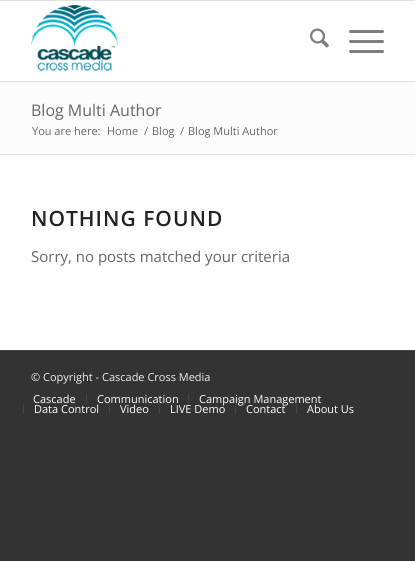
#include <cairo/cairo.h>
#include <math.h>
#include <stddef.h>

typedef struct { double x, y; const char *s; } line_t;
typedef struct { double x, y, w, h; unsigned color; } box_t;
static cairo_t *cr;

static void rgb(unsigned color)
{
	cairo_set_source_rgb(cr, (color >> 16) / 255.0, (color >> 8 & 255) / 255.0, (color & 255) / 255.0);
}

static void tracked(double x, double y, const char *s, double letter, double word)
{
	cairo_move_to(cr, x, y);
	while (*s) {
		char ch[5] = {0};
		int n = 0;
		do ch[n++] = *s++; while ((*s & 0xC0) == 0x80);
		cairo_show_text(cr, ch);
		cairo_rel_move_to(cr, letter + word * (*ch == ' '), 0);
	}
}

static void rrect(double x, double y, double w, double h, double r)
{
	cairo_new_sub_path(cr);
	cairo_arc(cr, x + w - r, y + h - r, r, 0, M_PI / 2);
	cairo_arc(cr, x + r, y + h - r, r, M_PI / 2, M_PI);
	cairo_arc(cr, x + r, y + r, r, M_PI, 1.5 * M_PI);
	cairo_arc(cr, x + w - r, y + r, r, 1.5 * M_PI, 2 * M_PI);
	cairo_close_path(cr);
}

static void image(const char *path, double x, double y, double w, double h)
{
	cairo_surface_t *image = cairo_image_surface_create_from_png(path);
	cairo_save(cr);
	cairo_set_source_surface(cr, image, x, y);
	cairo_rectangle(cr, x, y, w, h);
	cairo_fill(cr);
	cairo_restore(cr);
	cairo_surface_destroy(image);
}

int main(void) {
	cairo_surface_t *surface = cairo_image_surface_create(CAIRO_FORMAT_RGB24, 415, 561);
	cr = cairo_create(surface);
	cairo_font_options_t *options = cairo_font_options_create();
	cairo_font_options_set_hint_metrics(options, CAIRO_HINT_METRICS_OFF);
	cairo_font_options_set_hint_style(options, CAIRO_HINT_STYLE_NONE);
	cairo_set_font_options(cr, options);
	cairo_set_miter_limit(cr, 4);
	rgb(0x333333);
	cairo_paint(cr);
	{
		static const box_t items[] = {
			{0, 1, 415, 349, 0xffffff},
			{0, 0, 415, 1, 0xe1e1e1},
			{0, 81, 415, 1, 0xe1e1e1},
		};
		for (size_t i = 0; i < sizeof items / sizeof *items; i++) {
			rgb(items[i].color);
			cairo_rectangle(cr, items[i].x, items[i].y, items[i].w, items[i].h);
			cairo_fill(cr);
		}
	}
	image("img/1.png", 31, 5, 87, 66);
	image("img/2.png", 310, 28, 19, 20);
	rgb(0x808080);
	rrect(349, 40, 35, 3, 1.5);
	cairo_fill(cr);
	rrect(349, 30, 35, 3, 1.5);
	cairo_fill(cr);
	rrect(349, 50, 35, 3, 1.5);
	cairo_fill(cr);
	{
		static const box_t items[] = {
			{0, 82, 415, 72, 0xfcfcfc},
			{0, 154, 415, 1, 0xe1e1e1},
			{0, 350, 415, 1, 0x444444},
			{86, 394, 1, 10, 0x444444},
			{188, 394, 1, 10, 0x444444},
			{23, 404, 1, 10, 0x444444},
			{109, 404, 1, 10, 0x444444},
			{159, 404, 1, 10, 0x444444},
		};
		for (size_t i = 0; i < sizeof items / sizeof *items; i++) {
			rgb(items[i].color);
			cairo_rectangle(cr, items[i].x, items[i].y, items[i].w, items[i].h);
			cairo_fill(cr);
		}
	}
	cairo_select_font_face(cr, "Open Sans", CAIRO_FONT_SLANT_NORMAL, CAIRO_FONT_WEIGHT_NORMAL);
	cairo_set_font_size(cr, 16);
	rgb(0x666666);
	cairo_move_to(cr, 31, 116);
	cairo_show_text(cr, "Blog Multi Author");
	cairo_set_font_size(cr, 11);
	{
		static const line_t items[] = {
			{32, 135, "You are here:"},
			{107, 135, "Home"},
			{144, 135, "/"},
			{152, 135, "Blog"},
			{180, 135, "/"},
			{188, 135, "Blog Multi Author"},
		};
		for (size_t i = 0; i < sizeof items / sizeof *items; i++) {
			cairo_move_to(cr, items[i].x, items[i].y);
			cairo_show_text(cr, items[i].s);
		}
	}
	cairo_select_font_face(cr, "Open Sans SemiBold", CAIRO_FONT_SLANT_NORMAL, CAIRO_FONT_WEIGHT_NORMAL);
	cairo_set_font_size(cr, 21);
	rgb(0x222222);
	tracked(31, 226, "NOTHING FOUND", 1, 0);
	cairo_select_font_face(cr, "Open Sans", CAIRO_FONT_SLANT_NORMAL, CAIRO_FONT_WEIGHT_NORMAL);
	cairo_set_font_size(cr, 15);
	rgb(0x666666);
	cairo_move_to(cr, 31, 262);
	cairo_show_text(cr, "Sorry, no posts matched your criteria");
	cairo_set_font_size(cr, 11);
	rgb(0xeeeeee);
	cairo_move_to(cr, 31, 381);
	cairo_show_text(cr, "© Copyright - Cascade Cross Media");
	rgb(0xffffff);
	{
		static const line_t items[] = {
			{33, 403, "Cascade"},
			{97, 403, "Communication"},
			{199, 403, "Campaign Management"},
			{34, 413, "Data Control"},
			{120, 413, "Video"},
			{170, 413, "LIVE Demo"},
		};
		for (size_t i = 0; i < sizeof items / sizeof *items; i++) {
			cairo_move_to(cr, items[i].x, items[i].y);
			cairo_show_text(cr, items[i].s);
		}
	}
	rgb(0x444444);
	cairo_rectangle(cr, 235, 404, 1, 10);
	cairo_fill(cr);
	rgb(0xffffff);
	cairo_move_to(cr, 246, 413);
	cairo_show_text(cr, "Contact");
	rgb(0x444444);
	cairo_rectangle(cr, 296, 404, 1, 10);
	cairo_fill(cr);
	rgb(0xffffff);
	cairo_move_to(cr, 307, 413);
	cairo_show_text(cr, "About Us");
	cairo_surface_write_to_png(surface, "page.png");
	cairo_font_options_destroy(options);
	cairo_destroy(cr);
	cairo_surface_destroy(surface);
	return 0;
}
